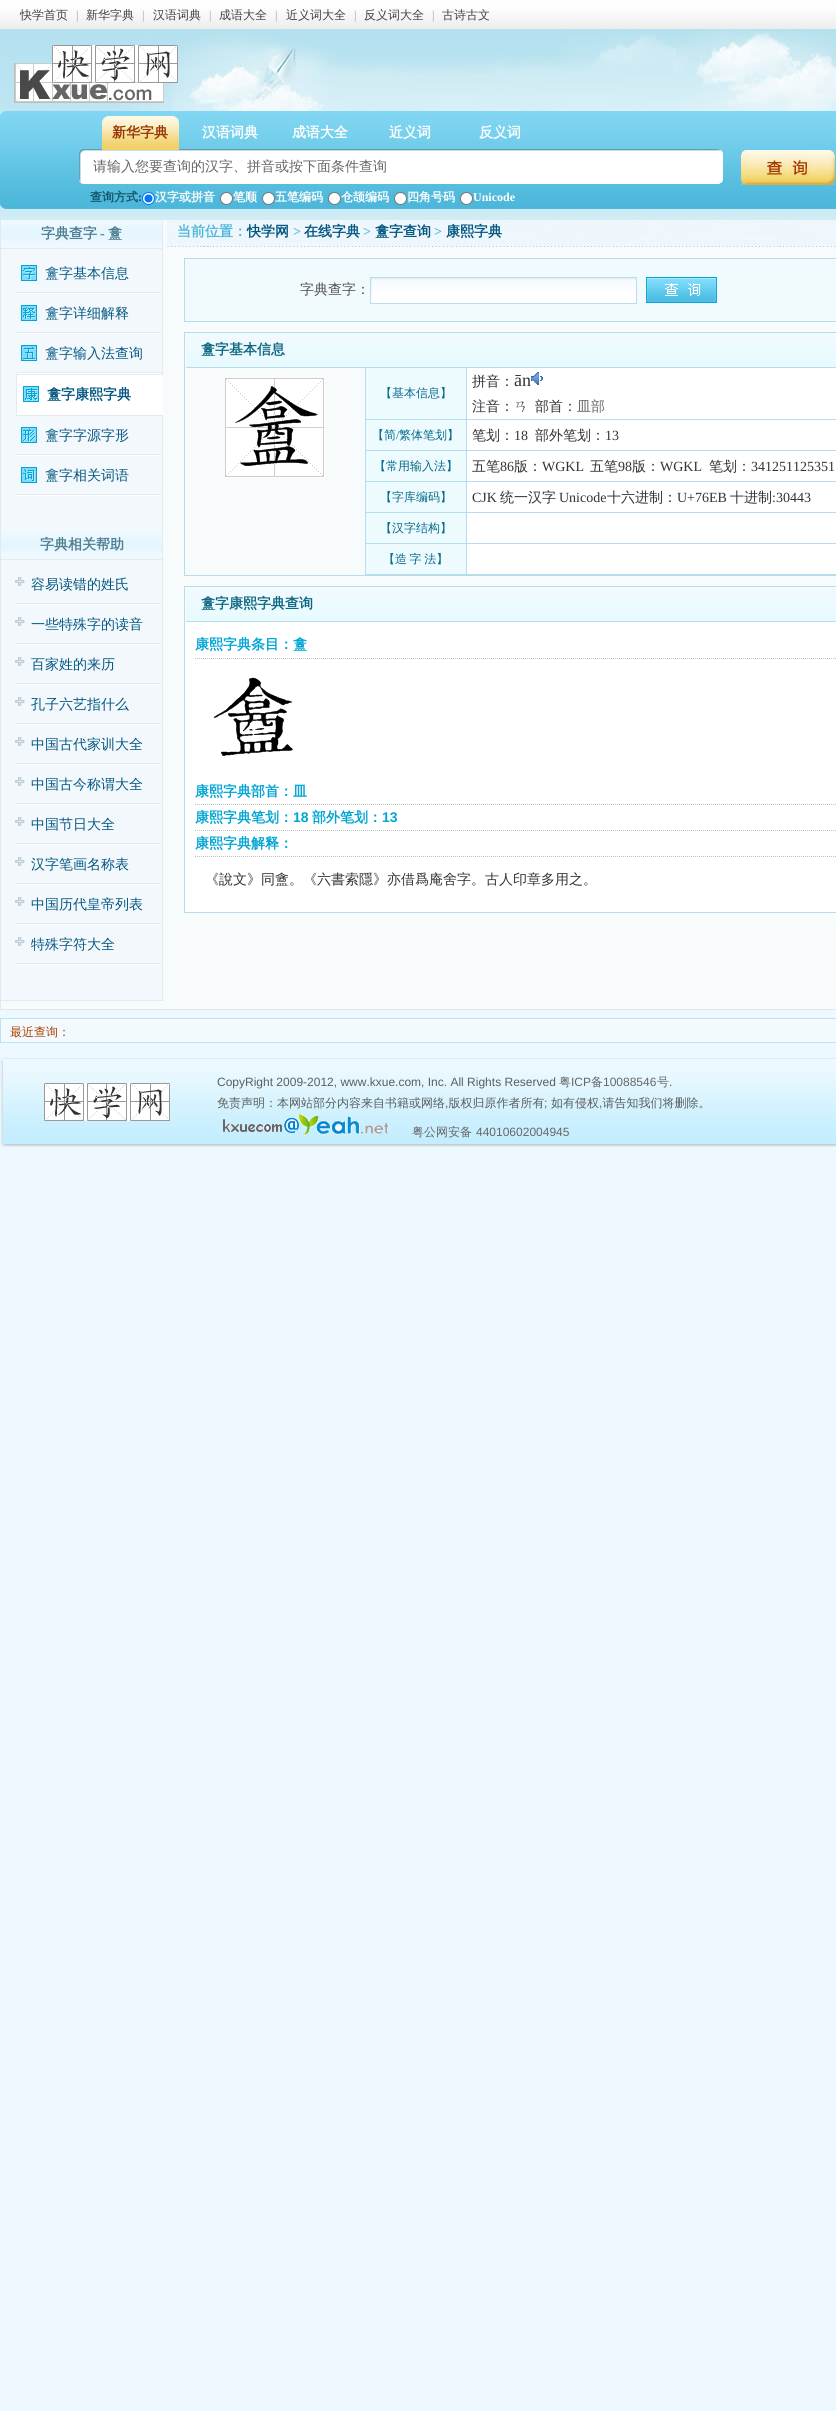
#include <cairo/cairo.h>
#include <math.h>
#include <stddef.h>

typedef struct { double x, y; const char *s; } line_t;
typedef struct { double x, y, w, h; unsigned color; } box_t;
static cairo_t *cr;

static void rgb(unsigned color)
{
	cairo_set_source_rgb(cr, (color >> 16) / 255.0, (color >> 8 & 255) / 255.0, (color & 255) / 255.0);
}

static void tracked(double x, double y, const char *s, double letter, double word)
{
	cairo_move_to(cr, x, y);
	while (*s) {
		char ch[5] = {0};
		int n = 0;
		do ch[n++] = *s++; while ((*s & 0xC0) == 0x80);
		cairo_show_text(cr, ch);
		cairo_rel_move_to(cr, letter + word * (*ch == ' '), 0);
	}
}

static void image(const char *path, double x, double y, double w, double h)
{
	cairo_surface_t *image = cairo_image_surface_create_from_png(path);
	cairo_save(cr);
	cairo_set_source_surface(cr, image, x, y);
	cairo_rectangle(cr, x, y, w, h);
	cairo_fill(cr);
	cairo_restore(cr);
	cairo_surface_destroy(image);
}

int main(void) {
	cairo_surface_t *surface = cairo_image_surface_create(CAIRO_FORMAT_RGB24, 836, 2411);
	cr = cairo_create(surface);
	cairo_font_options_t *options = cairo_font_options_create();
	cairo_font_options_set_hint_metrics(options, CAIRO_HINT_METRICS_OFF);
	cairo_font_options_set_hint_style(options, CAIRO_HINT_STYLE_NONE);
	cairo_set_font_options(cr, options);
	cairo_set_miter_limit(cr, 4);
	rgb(0xeef9ff);
	cairo_paint(cr);
	image("img/1.png", 0, 0, 836, 219);
	image("img/2.png", 0, 29, 836, 82);
	image("img/3.png", 14, 45, 164, 58);
	image("img/4.png", 0, 111, 10, 98);
	image("img/5.png", 10, 111, 826, 98);
	image("img/7.png", 79, 149, 644, 35);
	image("img/6.png", 102, 116, 77, 34);
	image("img/8.png", 741, 150, 94, 35);
	rgb(0xffffff);
	cairo_arc(cr, 148.5, 198.5, 6, 0, 2 * M_PI);
	cairo_fill_preserve(cr);
	rgb(0x0075ff);
	cairo_set_line_width(cr, 1);
	cairo_stroke(cr);
	cairo_arc(cr, 148.5, 198.5, 4, 0, 2 * M_PI);
	cairo_fill(cr);
	rgb(0xffffff);
	cairo_arc(cr, 226.5, 198.5, 6, 0, 2 * M_PI);
	cairo_fill_preserve(cr);
	rgb(0x767676);
	cairo_stroke(cr);
	rgb(0xffffff);
	cairo_arc(cr, 268.5, 198.5, 6, 0, 2 * M_PI);
	cairo_fill_preserve(cr);
	rgb(0x767676);
	cairo_stroke(cr);
	rgb(0xffffff);
	cairo_arc(cr, 334.5, 198.5, 6, 0, 2 * M_PI);
	cairo_fill_preserve(cr);
	rgb(0x767676);
	cairo_stroke(cr);
	rgb(0xffffff);
	cairo_arc(cr, 400.5, 198.5, 6, 0, 2 * M_PI);
	cairo_fill_preserve(cr);
	rgb(0x767676);
	cairo_stroke(cr);
	rgb(0xffffff);
	cairo_arc(cr, 466.5, 198.5, 6, 0, 2 * M_PI);
	cairo_fill_preserve(cr);
	rgb(0x767676);
	cairo_stroke(cr);
	rgb(0xf7fbfc);
	cairo_rectangle(cr, 0.5, 219.5, 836, 790);
	cairo_fill_preserve(cr);
	rgb(0xe1e9ec);
	cairo_stroke(cr);
	rgb(0xe6eaed);
	cairo_rectangle(cr, 162, 220, 1, 781);
	cairo_fill(cr);
	cairo_rectangle(cr, 1, 1000, 162, 1);
	cairo_fill(cr);
	image("img/9.png", 1, 220, 161, 28);
	cairo_rectangle(cr, 1, 248, 161, 1);
	cairo_fill(cr);
	rgb(0xf3f8fc);
	cairo_rectangle(cr, 1, 249, 161, 282);
	cairo_fill(cr);
	image("img/10.png", 15, 292, 146, 2);
	image("img/11.png", 21, 265, 16, 16);
	image("img/10.png", 15, 332, 146, 2);
	image("img/12.png", 21, 305, 16, 16);
	image("img/10.png", 15, 372, 146, 2);
	image("img/13.png", 21, 345, 16, 16);
	{
		static const box_t items[] = {
			{17, 375, 146, 40, 0xffffff},
			{16, 374, 147, 1, 0xe6eaed},
			{16, 415, 147, 1, 0xe6eaed},
			{16, 374, 1, 42, 0xe6eaed},
		};
		for (size_t i = 0; i < sizeof items / sizeof *items; i++) {
			rgb(items[i].color);
			cairo_rectangle(cr, items[i].x, items[i].y, items[i].w, items[i].h);
			cairo_fill(cr);
		}
	}
	image("img/14.png", 23, 386, 16, 16);
	image("img/10.png", 15, 454, 146, 2);
	image("img/15.png", 21, 427, 16, 16);
	image("img/10.png", 15, 494, 146, 2);
	image("img/16.png", 21, 467, 16, 16);
	image("img/9.png", 1, 531, 161, 28);
	cairo_rectangle(cr, 1, 559, 161, 1);
	cairo_fill(cr);
	rgb(0xf3f8fc);
	cairo_rectangle(cr, 1, 560, 161, 440);
	cairo_fill(cr);
	image("img/10.png", 15, 603, 146, 2);
	image("img/17.png", 15, 577, 10, 9);
	image("img/10.png", 15, 643, 146, 2);
	image("img/17.png", 15, 617, 10, 9);
	image("img/10.png", 15, 683, 146, 2);
	image("img/17.png", 15, 657, 10, 9);
	image("img/10.png", 15, 723, 146, 2);
	image("img/17.png", 15, 697, 10, 9);
	image("img/10.png", 15, 763, 146, 2);
	image("img/17.png", 15, 737, 10, 9);
	image("img/10.png", 15, 803, 146, 2);
	image("img/17.png", 15, 777, 10, 9);
	image("img/10.png", 15, 843, 146, 2);
	image("img/17.png", 15, 817, 10, 9);
	image("img/10.png", 15, 883, 146, 2);
	image("img/17.png", 15, 857, 10, 9);
	image("img/10.png", 15, 923, 146, 2);
	image("img/17.png", 15, 897, 10, 9);
	image("img/10.png", 15, 963, 146, 2);
	image("img/17.png", 15, 937, 10, 9);
	image("img/18.png", 167, 220, 669, 27);
	rgb(0xf1fafd);
	cairo_rectangle(cr, 184.5, 258.5, 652, 63);
	cairo_fill_preserve(cr);
	rgb(0xb6ddeb);
	cairo_stroke(cr);
	image("img/19.png", 371, 278, 265, 25);
	cairo_rectangle(cr, 370.5, 277.5, 266, 26);
	rgb(0xb9ddeb);
	cairo_stroke(cr);
	image("img/20.png", 646, 277, 71, 26);
	cairo_rectangle(cr, 184.5, 332.5, 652, 243);
	rgb(0xb7ddea);
	cairo_stroke(cr);
	image("img/21.png", 186, 333, 650, 34);
	cairo_rectangle(cr, 186, 367, 650, 1);
	cairo_fill(cr);
	image("img/22.png", 225, 378, 100, 100);
	image("img/23.png", 235, 386, 83, 80);
	{
		static const box_t items[] = {
			{366, 368, 100, 51, 0xedfbfe},
			{466, 368, 1, 207, 0xb7ddea},
			{365, 419, 471, 1, 0xb7ddea},
			{365, 368, 1, 52, 0xb7ddea},
			{467, 368, 369, 51, 0xffffff},
		};
		for (size_t i = 0; i < sizeof items / sizeof *items; i++) {
			rgb(items[i].color);
			cairo_rectangle(cr, items[i].x, items[i].y, items[i].w, items[i].h);
			cairo_fill(cr);
		}
	}
	image("img/24.png", 531, 372, 12, 13);
	{
		static const box_t items[] = {
			{366, 420, 100, 30, 0xedfbfe},
			{365, 450, 471, 1, 0xb7ddea},
			{365, 420, 1, 31, 0xb7ddea},
			{467, 420, 369, 30, 0xffffff},
			{366, 451, 100, 30, 0xedfbfe},
			{365, 481, 471, 1, 0xb7ddea},
			{365, 451, 1, 31, 0xb7ddea},
			{467, 451, 369, 30, 0xffffff},
			{366, 482, 100, 30, 0xedfbfe},
			{365, 512, 471, 1, 0xb7ddea},
			{365, 482, 1, 31, 0xb7ddea},
			{467, 482, 369, 30, 0xffffff},
			{366, 513, 100, 30, 0xedfbfe},
			{365, 543, 471, 1, 0xb7ddea},
			{365, 513, 1, 31, 0xb7ddea},
			{467, 513, 369, 30, 0xffffff},
			{366, 544, 100, 30, 0xedfbfe},
			{365, 574, 471, 1, 0xb7ddea},
			{365, 544, 1, 31, 0xb7ddea},
			{467, 544, 369, 30, 0xffffff},
		};
		for (size_t i = 0; i < sizeof items / sizeof *items; i++) {
			rgb(items[i].color);
			cairo_rectangle(cr, items[i].x, items[i].y, items[i].w, items[i].h);
			cairo_fill(cr);
		}
	}
	cairo_rectangle(cr, 184.5, 586.5, 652, 326);
	rgb(0xb7ddea);
	cairo_stroke(cr);
	image("img/21.png", 186, 587, 650, 34);
	cairo_rectangle(cr, 186, 621, 650, 1);
	cairo_fill(cr);
	rgb(0xffffff);
	cairo_rectangle(cr, 185, 622, 651, 290);
	cairo_fill(cr);
	cairo_new_path(cr);
	cairo_move_to(cr, 195, 658.5);
	cairo_line_to(cr, 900, 658.5);
	rgb(0xbfc2c3);
	cairo_set_dash(cr, (double[]){1, 1}, 2, 0);
	cairo_stroke(cr);
	image("img/25.png", 213, 677, 80, 79);
	cairo_new_path(cr);
	cairo_move_to(cr, 195, 804.5);
	cairo_line_to(cr, 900, 804.5);
	cairo_stroke(cr);
	cairo_new_path(cr);
	cairo_move_to(cr, 195, 830.5);
	cairo_line_to(cr, 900, 830.5);
	cairo_stroke(cr);
	cairo_new_path(cr);
	cairo_move_to(cr, 195, 856.5);
	cairo_line_to(cr, 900, 856.5);
	cairo_stroke(cr);
	rgb(0xf2fafd);
	cairo_rectangle(cr, 0.5, 1018.5, 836, 24);
	cairo_fill_preserve(cr);
	rgb(0xbee3f0);
	cairo_set_dash(cr, NULL, 0, 0);
	cairo_stroke(cr);
	image("img/26.png", 0, 1057, 7, 90);
	image("img/27.png", 7, 1058, 829, 89);
	image("img/28.png", 44, 1083, 126, 38);
	image("img/29.png", 223, 1114, 165, 22);
	cairo_select_font_face(cr, "WenQuanYi Zen Hei Medium", CAIRO_FONT_SLANT_NORMAL, CAIRO_FONT_WEIGHT_NORMAL);
	cairo_set_font_size(cr, 12);
	rgb(0x404040);
	cairo_move_to(cr, 20, 19);
	cairo_show_text(cr, "快学首页");
	cairo_select_font_face(cr, "Liberation Serif", CAIRO_FONT_SLANT_NORMAL, CAIRO_FONT_WEIGHT_NORMAL);
	rgb(0xa0a0a0);
	cairo_move_to(cr, 76, 19);
	cairo_show_text(cr, "|");
	cairo_select_font_face(cr, "WenQuanYi Zen Hei Medium", CAIRO_FONT_SLANT_NORMAL, CAIRO_FONT_WEIGHT_NORMAL);
	rgb(0x404040);
	cairo_move_to(cr, 86, 19);
	cairo_show_text(cr, "新华字典");
	cairo_select_font_face(cr, "Liberation Serif", CAIRO_FONT_SLANT_NORMAL, CAIRO_FONT_WEIGHT_NORMAL);
	rgb(0xa0a0a0);
	cairo_move_to(cr, 142, 19);
	cairo_show_text(cr, "|");
	cairo_select_font_face(cr, "WenQuanYi Zen Hei Medium", CAIRO_FONT_SLANT_NORMAL, CAIRO_FONT_WEIGHT_NORMAL);
	rgb(0x404040);
	cairo_move_to(cr, 153, 19);
	cairo_show_text(cr, "汉语词典");
	cairo_select_font_face(cr, "Liberation Serif", CAIRO_FONT_SLANT_NORMAL, CAIRO_FONT_WEIGHT_NORMAL);
	rgb(0xa0a0a0);
	cairo_move_to(cr, 209, 19);
	cairo_show_text(cr, "|");
	cairo_select_font_face(cr, "WenQuanYi Zen Hei Medium", CAIRO_FONT_SLANT_NORMAL, CAIRO_FONT_WEIGHT_NORMAL);
	rgb(0x404040);
	cairo_move_to(cr, 219, 19);
	cairo_show_text(cr, "成语大全");
	cairo_select_font_face(cr, "Liberation Serif", CAIRO_FONT_SLANT_NORMAL, CAIRO_FONT_WEIGHT_NORMAL);
	rgb(0xa0a0a0);
	cairo_move_to(cr, 275, 19);
	cairo_show_text(cr, "|");
	cairo_select_font_face(cr, "WenQuanYi Zen Hei Medium", CAIRO_FONT_SLANT_NORMAL, CAIRO_FONT_WEIGHT_NORMAL);
	rgb(0x404040);
	cairo_move_to(cr, 286, 19);
	cairo_show_text(cr, "近义词大全");
	cairo_select_font_face(cr, "Liberation Serif", CAIRO_FONT_SLANT_NORMAL, CAIRO_FONT_WEIGHT_NORMAL);
	rgb(0xa0a0a0);
	cairo_move_to(cr, 354, 19);
	cairo_show_text(cr, "|");
	cairo_select_font_face(cr, "WenQuanYi Zen Hei Medium", CAIRO_FONT_SLANT_NORMAL, CAIRO_FONT_WEIGHT_NORMAL);
	rgb(0x404040);
	cairo_move_to(cr, 364, 19);
	cairo_show_text(cr, "反义词大全");
	cairo_select_font_face(cr, "Liberation Serif", CAIRO_FONT_SLANT_NORMAL, CAIRO_FONT_WEIGHT_NORMAL);
	rgb(0xa0a0a0);
	cairo_move_to(cr, 432, 19);
	cairo_show_text(cr, "|");
	cairo_select_font_face(cr, "WenQuanYi Zen Hei Medium", CAIRO_FONT_SLANT_NORMAL, CAIRO_FONT_WEIGHT_NORMAL);
	rgb(0x404040);
	cairo_move_to(cr, 442, 19);
	cairo_show_text(cr, "古诗古文");
	cairo_select_font_face(cr, "WenQuanYi Zen Hei", CAIRO_FONT_SLANT_NORMAL, CAIRO_FONT_WEIGHT_BOLD);
	cairo_set_font_size(cr, 14);
	rgb(0x983400);
	cairo_move_to(cr, 112, 137);
	cairo_show_text(cr, "新华字典");
	rgb(0xffffff);
	{
		static const line_t items[] = {
			{202, 137, "汉语词典"},
			{292, 137, "成语大全"},
			{389, 137, "近义词"},
			{479, 137, "反义词"},
		};
		for (size_t i = 0; i < sizeof items / sizeof *items; i++) {
			cairo_move_to(cr, items[i].x, items[i].y);
			cairo_show_text(cr, items[i].s);
		}
	}
	cairo_select_font_face(cr, "WenQuanYi Zen Hei Medium", CAIRO_FONT_SLANT_NORMAL, CAIRO_FONT_WEIGHT_NORMAL);
	rgb(0x666666);
	cairo_move_to(cr, 93, 171);
	cairo_show_text(cr, "请输入您要查询的汉字、拼音或按下面条件查询");
	cairo_select_font_face(cr, "WenQuanYi Zen Hei", CAIRO_FONT_SLANT_NORMAL, CAIRO_FONT_WEIGHT_BOLD);
	cairo_set_font_size(cr, 12);
	rgb(0x145367);
	cairo_move_to(cr, 90, 201);
	cairo_show_text(cr, "查询方式");
	cairo_select_font_face(cr, "Liberation Serif", CAIRO_FONT_SLANT_NORMAL, CAIRO_FONT_WEIGHT_BOLD);
	cairo_move_to(cr, 138, 201);
	cairo_show_text(cr, ":");
	cairo_select_font_face(cr, "WenQuanYi Zen Hei", CAIRO_FONT_SLANT_NORMAL, CAIRO_FONT_WEIGHT_BOLD);
	rgb(0xffffff);
	{
		static const line_t items[] = {
			{155, 201, "汉字或拼音"},
			{233, 201, "笔顺"},
			{275, 201, "五笔编码"},
			{341, 201, "仓颉编码"},
			{407, 201, "四角号码"},
		};
		for (size_t i = 0; i < sizeof items / sizeof *items; i++) {
			cairo_move_to(cr, items[i].x, items[i].y);
			cairo_show_text(cr, items[i].s);
		}
	}
	cairo_select_font_face(cr, "Liberation Serif", CAIRO_FONT_SLANT_NORMAL, CAIRO_FONT_WEIGHT_BOLD);
	cairo_move_to(cr, 473, 201);
	cairo_show_text(cr, "Unicode");
	cairo_select_font_face(cr, "WenQuanYi Zen Hei", CAIRO_FONT_SLANT_NORMAL, CAIRO_FONT_WEIGHT_BOLD);
	cairo_set_font_size(cr, 14);
	rgb(0x518093);
	cairo_move_to(cr, 41, 238);
	cairo_show_text(cr, "字典查字");
	cairo_select_font_face(cr, "Liberation Serif", CAIRO_FONT_SLANT_NORMAL, CAIRO_FONT_WEIGHT_BOLD);
	cairo_move_to(cr, 100, 238);
	cairo_show_text(cr, "-");
	cairo_select_font_face(cr, "WenQuanYi Zen Hei", CAIRO_FONT_SLANT_NORMAL, CAIRO_FONT_WEIGHT_BOLD);
	cairo_move_to(cr, 108, 238);
	cairo_show_text(cr, "盫");
	cairo_select_font_face(cr, "WenQuanYi Zen Hei Medium", CAIRO_FONT_SLANT_NORMAL, CAIRO_FONT_WEIGHT_NORMAL);
	rgb(0x035781);
	{
		static const line_t items[] = {
			{45, 278, "盫字基本信息"},
			{45, 318, "盫字详细解释"},
			{45, 358, "盫字输入法查询"},
		};
		for (size_t i = 0; i < sizeof items / sizeof *items; i++) {
			cairo_move_to(cr, items[i].x, items[i].y);
			cairo_show_text(cr, items[i].s);
		}
	}
	cairo_select_font_face(cr, "WenQuanYi Zen Hei", CAIRO_FONT_SLANT_NORMAL, CAIRO_FONT_WEIGHT_BOLD);
	cairo_move_to(cr, 47, 399);
	cairo_show_text(cr, "盫字康熙字典");
	cairo_select_font_face(cr, "WenQuanYi Zen Hei Medium", CAIRO_FONT_SLANT_NORMAL, CAIRO_FONT_WEIGHT_NORMAL);
	cairo_move_to(cr, 45, 440);
	cairo_show_text(cr, "盫字字源字形");
	cairo_move_to(cr, 45, 480);
	cairo_show_text(cr, "盫字相关词语");
	cairo_select_font_face(cr, "WenQuanYi Zen Hei", CAIRO_FONT_SLANT_NORMAL, CAIRO_FONT_WEIGHT_BOLD);
	rgb(0x518093);
	cairo_move_to(cr, 40, 549);
	cairo_show_text(cr, "字典相关帮助");
	cairo_select_font_face(cr, "WenQuanYi Zen Hei Medium", CAIRO_FONT_SLANT_NORMAL, CAIRO_FONT_WEIGHT_NORMAL);
	rgb(0x035781);
	{
		static const line_t items[] = {
			{31, 589, "容易读错的姓氏"},
			{31, 629, "一些特殊字的读音"},
			{31, 669, "百家姓的来历"},
			{31, 709, "孔子六艺指什么"},
			{31, 749, "中国古代家训大全"},
			{31, 789, "中国古今称谓大全"},
			{31, 829, "中国节日大全"},
			{31, 869, "汉字笔画名称表"},
			{31, 909, "中国历代皇帝列表"},
			{31, 949, "特殊字符大全"},
		};
		for (size_t i = 0; i < sizeof items / sizeof *items; i++) {
			cairo_move_to(cr, items[i].x, items[i].y);
			cairo_show_text(cr, items[i].s);
		}
	}
	cairo_select_font_face(cr, "WenQuanYi Zen Hei", CAIRO_FONT_SLANT_NORMAL, CAIRO_FONT_WEIGHT_BOLD);
	rgb(0x4eb8db);
	cairo_move_to(cr, 177, 236);
	cairo_show_text(cr, "当前位置：");
	rgb(0x035781);
	cairo_move_to(cr, 247, 236);
	cairo_show_text(cr, "快学网");
	cairo_select_font_face(cr, "Liberation Serif", CAIRO_FONT_SLANT_NORMAL, CAIRO_FONT_WEIGHT_BOLD);
	rgb(0x4eb8db);
	cairo_move_to(cr, 293, 236);
	cairo_show_text(cr, ">");
	cairo_select_font_face(cr, "WenQuanYi Zen Hei", CAIRO_FONT_SLANT_NORMAL, CAIRO_FONT_WEIGHT_BOLD);
	rgb(0x035781);
	cairo_move_to(cr, 304, 236);
	cairo_show_text(cr, "在线字典");
	cairo_select_font_face(cr, "Liberation Serif", CAIRO_FONT_SLANT_NORMAL, CAIRO_FONT_WEIGHT_BOLD);
	rgb(0x4eb8db);
	cairo_move_to(cr, 363, 236);
	cairo_show_text(cr, ">");
	cairo_select_font_face(cr, "WenQuanYi Zen Hei", CAIRO_FONT_SLANT_NORMAL, CAIRO_FONT_WEIGHT_BOLD);
	rgb(0x035781);
	cairo_move_to(cr, 375, 236);
	cairo_show_text(cr, "盫字查询");
	cairo_select_font_face(cr, "Liberation Serif", CAIRO_FONT_SLANT_NORMAL, CAIRO_FONT_WEIGHT_BOLD);
	rgb(0x4eb8db);
	cairo_move_to(cr, 434, 236);
	cairo_show_text(cr, ">");
	cairo_select_font_face(cr, "WenQuanYi Zen Hei", CAIRO_FONT_SLANT_NORMAL, CAIRO_FONT_WEIGHT_BOLD);
	rgb(0x035781);
	cairo_move_to(cr, 446, 236);
	cairo_show_text(cr, "康熙字典");
	cairo_select_font_face(cr, "WenQuanYi Zen Hei Medium", CAIRO_FONT_SLANT_NORMAL, CAIRO_FONT_WEIGHT_NORMAL);
	rgb(0x4e4e4e);
	cairo_move_to(cr, 300, 294);
	cairo_show_text(cr, "字典查字：");
	cairo_select_font_face(cr, "WenQuanYi Zen Hei", CAIRO_FONT_SLANT_NORMAL, CAIRO_FONT_WEIGHT_BOLD);
	rgb(0x0f6882);
	cairo_move_to(cr, 201, 354);
	cairo_show_text(cr, "盫字基本信息");
	cairo_select_font_face(cr, "WenQuanYi Zen Hei Medium", CAIRO_FONT_SLANT_NORMAL, CAIRO_FONT_WEIGHT_NORMAL);
	cairo_set_font_size(cr, 12);
	rgb(0x05698b);
	cairo_move_to(cr, 380, 397);
	cairo_show_text(cr, "【基本信息】");
	cairo_set_font_size(cr, 14);
	rgb(0x333333);
	cairo_move_to(cr, 472, 386);
	cairo_show_text(cr, "拼音：");
	cairo_select_font_face(cr, "Liberation Serif", CAIRO_FONT_SLANT_NORMAL, CAIRO_FONT_WEIGHT_NORMAL);
	cairo_set_font_size(cr, 18);
	cairo_move_to(cr, 514, 386);
	cairo_show_text(cr, "ān");
	cairo_select_font_face(cr, "WenQuanYi Zen Hei Medium", CAIRO_FONT_SLANT_NORMAL, CAIRO_FONT_WEIGHT_NORMAL);
	cairo_set_font_size(cr, 14);
	cairo_move_to(cr, 472, 411);
	cairo_show_text(cr, "注音：ㄢ");
	cairo_move_to(cr, 535, 411);
	cairo_show_text(cr, "部首：");
	rgb(0x666666);
	cairo_move_to(cr, 577, 411);
	cairo_show_text(cr, "皿部");
	cairo_set_font_size(cr, 12);
	rgb(0x05698b);
	cairo_move_to(cr, 372, 439);
	cairo_show_text(cr, "【简");
	cairo_select_font_face(cr, "Liberation Serif", CAIRO_FONT_SLANT_NORMAL, CAIRO_FONT_WEIGHT_NORMAL);
	cairo_move_to(cr, 396, 439);
	cairo_show_text(cr, "/");
	cairo_select_font_face(cr, "WenQuanYi Zen Hei Medium", CAIRO_FONT_SLANT_NORMAL, CAIRO_FONT_WEIGHT_NORMAL);
	cairo_move_to(cr, 399, 439);
	cairo_show_text(cr, "繁体笔划】");
	cairo_set_font_size(cr, 14);
	rgb(0x333333);
	cairo_move_to(cr, 472, 440);
	cairo_show_text(cr, "笔划：");
	cairo_select_font_face(cr, "Liberation Serif", CAIRO_FONT_SLANT_NORMAL, CAIRO_FONT_WEIGHT_NORMAL);
	cairo_move_to(cr, 514, 440);
	cairo_show_text(cr, "18");
	cairo_select_font_face(cr, "WenQuanYi Zen Hei Medium", CAIRO_FONT_SLANT_NORMAL, CAIRO_FONT_WEIGHT_NORMAL);
	cairo_move_to(cr, 535, 440);
	cairo_show_text(cr, "部外笔划：");
	cairo_select_font_face(cr, "Liberation Serif", CAIRO_FONT_SLANT_NORMAL, CAIRO_FONT_WEIGHT_NORMAL);
	cairo_move_to(cr, 605, 440);
	cairo_show_text(cr, "13");
	cairo_select_font_face(cr, "WenQuanYi Zen Hei Medium", CAIRO_FONT_SLANT_NORMAL, CAIRO_FONT_WEIGHT_NORMAL);
	cairo_set_font_size(cr, 12);
	rgb(0x05698b);
	cairo_move_to(cr, 374, 470);
	cairo_show_text(cr, "【常用输入法】");
	cairo_set_font_size(cr, 14);
	rgb(0x333333);
	cairo_move_to(cr, 472, 471);
	cairo_show_text(cr, "五笔");
	cairo_select_font_face(cr, "Liberation Serif", CAIRO_FONT_SLANT_NORMAL, CAIRO_FONT_WEIGHT_NORMAL);
	cairo_move_to(cr, 500, 471);
	cairo_show_text(cr, "86");
	cairo_select_font_face(cr, "WenQuanYi Zen Hei Medium", CAIRO_FONT_SLANT_NORMAL, CAIRO_FONT_WEIGHT_NORMAL);
	cairo_move_to(cr, 514, 471);
	cairo_show_text(cr, "版：");
	cairo_select_font_face(cr, "Liberation Serif", CAIRO_FONT_SLANT_NORMAL, CAIRO_FONT_WEIGHT_NORMAL);
	cairo_move_to(cr, 542, 471);
	cairo_show_text(cr, "WGKL");
	cairo_select_font_face(cr, "WenQuanYi Zen Hei Medium", CAIRO_FONT_SLANT_NORMAL, CAIRO_FONT_WEIGHT_NORMAL);
	cairo_move_to(cr, 590, 471);
	cairo_show_text(cr, "五笔");
	cairo_select_font_face(cr, "Liberation Serif", CAIRO_FONT_SLANT_NORMAL, CAIRO_FONT_WEIGHT_NORMAL);
	cairo_move_to(cr, 618, 471);
	cairo_show_text(cr, "98");
	cairo_select_font_face(cr, "WenQuanYi Zen Hei Medium", CAIRO_FONT_SLANT_NORMAL, CAIRO_FONT_WEIGHT_NORMAL);
	cairo_move_to(cr, 632, 471);
	cairo_show_text(cr, "版：");
	cairo_select_font_face(cr, "Liberation Serif", CAIRO_FONT_SLANT_NORMAL, CAIRO_FONT_WEIGHT_NORMAL);
	cairo_move_to(cr, 660, 471);
	cairo_show_text(cr, "WGKL");
	cairo_select_font_face(cr, "WenQuanYi Zen Hei Medium", CAIRO_FONT_SLANT_NORMAL, CAIRO_FONT_WEIGHT_NORMAL);
	cairo_move_to(cr, 709, 471);
	cairo_show_text(cr, "笔划：");
	cairo_select_font_face(cr, "Liberation Serif", CAIRO_FONT_SLANT_NORMAL, CAIRO_FONT_WEIGHT_NORMAL);
	cairo_move_to(cr, 751, 471);
	cairo_show_text(cr, "341251125351");
	cairo_select_font_face(cr, "WenQuanYi Zen Hei Medium", CAIRO_FONT_SLANT_NORMAL, CAIRO_FONT_WEIGHT_NORMAL);
	cairo_set_font_size(cr, 12);
	rgb(0x05698b);
	cairo_move_to(cr, 380, 501);
	cairo_show_text(cr, "【字库编码】");
	cairo_select_font_face(cr, "Liberation Serif", CAIRO_FONT_SLANT_NORMAL, CAIRO_FONT_WEIGHT_NORMAL);
	cairo_set_font_size(cr, 14);
	rgb(0x333333);
	cairo_move_to(cr, 472, 502);
	cairo_show_text(cr, "CJK");
	cairo_select_font_face(cr, "WenQuanYi Zen Hei Medium", CAIRO_FONT_SLANT_NORMAL, CAIRO_FONT_WEIGHT_NORMAL);
	cairo_move_to(cr, 500, 502);
	cairo_show_text(cr, "统一汉字");
	cairo_select_font_face(cr, "Liberation Serif", CAIRO_FONT_SLANT_NORMAL, CAIRO_FONT_WEIGHT_NORMAL);
	cairo_move_to(cr, 559, 502);
	cairo_show_text(cr, "Unicode");
	cairo_select_font_face(cr, "WenQuanYi Zen Hei Medium", CAIRO_FONT_SLANT_NORMAL, CAIRO_FONT_WEIGHT_NORMAL);
	cairo_move_to(cr, 607, 502);
	cairo_show_text(cr, "十六进制：");
	cairo_select_font_face(cr, "Liberation Serif", CAIRO_FONT_SLANT_NORMAL, CAIRO_FONT_WEIGHT_NORMAL);
	cairo_move_to(cr, 677, 502);
	cairo_show_text(cr, "U+76EB");
	cairo_select_font_face(cr, "WenQuanYi Zen Hei Medium", CAIRO_FONT_SLANT_NORMAL, CAIRO_FONT_WEIGHT_NORMAL);
	cairo_move_to(cr, 730, 502);
	cairo_show_text(cr, "十进制");
	cairo_select_font_face(cr, "Liberation Serif", CAIRO_FONT_SLANT_NORMAL, CAIRO_FONT_WEIGHT_NORMAL);
	cairo_move_to(cr, 772, 502);
	cairo_show_text(cr, ":30443");
	cairo_select_font_face(cr, "WenQuanYi Zen Hei Medium", CAIRO_FONT_SLANT_NORMAL, CAIRO_FONT_WEIGHT_NORMAL);
	cairo_set_font_size(cr, 12);
	rgb(0x05698b);
	cairo_move_to(cr, 380, 532);
	cairo_show_text(cr, "【汉字结构】");
	tracked(383, 563, "【造 字 法】", 0, -1);
	cairo_select_font_face(cr, "WenQuanYi Zen Hei", CAIRO_FONT_SLANT_NORMAL, CAIRO_FONT_WEIGHT_BOLD);
	cairo_set_font_size(cr, 14);
	rgb(0x0f6882);
	cairo_move_to(cr, 201, 608);
	cairo_show_text(cr, "盫字康熙字典查询");
	rgb(0x00a5d3);
	{
		static const line_t items[] = {
			{195, 649, "康熙字典条目：盫"},
			{195, 796, "康熙字典部首：皿"},
			{195, 822, "康熙字典笔划："},
		};
		for (size_t i = 0; i < sizeof items / sizeof *items; i++) {
			cairo_move_to(cr, items[i].x, items[i].y);
			cairo_show_text(cr, items[i].s);
		}
	}
	cairo_select_font_face(cr, "Liberation Sans", CAIRO_FONT_SLANT_NORMAL, CAIRO_FONT_WEIGHT_BOLD);
	cairo_move_to(cr, 293, 822);
	cairo_show_text(cr, "18");
	cairo_select_font_face(cr, "WenQuanYi Zen Hei", CAIRO_FONT_SLANT_NORMAL, CAIRO_FONT_WEIGHT_BOLD);
	cairo_move_to(cr, 312, 822);
	cairo_show_text(cr, "部外笔划：");
	cairo_select_font_face(cr, "Liberation Sans", CAIRO_FONT_SLANT_NORMAL, CAIRO_FONT_WEIGHT_BOLD);
	cairo_move_to(cr, 382, 822);
	cairo_show_text(cr, "13");
	cairo_select_font_face(cr, "WenQuanYi Zen Hei", CAIRO_FONT_SLANT_NORMAL, CAIRO_FONT_WEIGHT_BOLD);
	cairo_move_to(cr, 195, 848);
	cairo_show_text(cr, "康熙字典解释：");
	cairo_select_font_face(cr, "WenQuanYi Zen Hei Medium", CAIRO_FONT_SLANT_NORMAL, CAIRO_FONT_WEIGHT_NORMAL);
	rgb(0x333333);
	cairo_move_to(cr, 205, 884);
	cairo_show_text(cr, "《說文》同盦。《六書索隱》亦借爲庵舍字。古人印章多用之。");
	cairo_set_font_size(cr, 12);
	rgb(0xad3b00);
	cairo_move_to(cr, 10, 1036);
	cairo_show_text(cr, "最近查询：");
	cairo_select_font_face(cr, "Liberation Sans", CAIRO_FONT_SLANT_NORMAL, CAIRO_FONT_WEIGHT_NORMAL);
	rgb(0x5a5e5d);
	cairo_move_to(cr, 217, 1086);
	cairo_show_text(cr, "CopyRight 2009-2012, www.kxue.com, Inc. All Rights Reserved");
	cairo_select_font_face(cr, "WenQuanYi Zen Hei Medium", CAIRO_FONT_SLANT_NORMAL, CAIRO_FONT_WEIGHT_NORMAL);
	rgb(0x666666);
	cairo_move_to(cr, 559, 1086);
	cairo_show_text(cr, "粤");
	cairo_select_font_face(cr, "Liberation Sans", CAIRO_FONT_SLANT_NORMAL, CAIRO_FONT_WEIGHT_NORMAL);
	cairo_move_to(cr, 571, 1086);
	cairo_show_text(cr, "ICP");
	cairo_select_font_face(cr, "WenQuanYi Zen Hei Medium", CAIRO_FONT_SLANT_NORMAL, CAIRO_FONT_WEIGHT_NORMAL);
	cairo_move_to(cr, 591, 1086);
	cairo_show_text(cr, "备");
	cairo_select_font_face(cr, "Liberation Sans", CAIRO_FONT_SLANT_NORMAL, CAIRO_FONT_WEIGHT_NORMAL);
	cairo_move_to(cr, 603, 1086);
	cairo_show_text(cr, "10088546");
	cairo_select_font_face(cr, "WenQuanYi Zen Hei Medium", CAIRO_FONT_SLANT_NORMAL, CAIRO_FONT_WEIGHT_NORMAL);
	cairo_move_to(cr, 657, 1086);
	cairo_show_text(cr, "号");
	cairo_select_font_face(cr, "Liberation Sans", CAIRO_FONT_SLANT_NORMAL, CAIRO_FONT_WEIGHT_NORMAL);
	rgb(0x5a5e5d);
	cairo_move_to(cr, 669, 1086);
	cairo_show_text(cr, ".");
	cairo_select_font_face(cr, "WenQuanYi Zen Hei Medium", CAIRO_FONT_SLANT_NORMAL, CAIRO_FONT_WEIGHT_NORMAL);
	cairo_move_to(cr, 217, 1107);
	cairo_show_text(cr, "免责声明：本网站部分内容来自书籍或网络 版权归原作者所有");
	cairo_select_font_face(cr, "Liberation Sans", CAIRO_FONT_SLANT_NORMAL, CAIRO_FONT_WEIGHT_NORMAL);
	cairo_move_to(cr, 544, 1107);
	cairo_show_text(cr, ";");
	cairo_select_font_face(cr, "WenQuanYi Zen Hei Medium", CAIRO_FONT_SLANT_NORMAL, CAIRO_FONT_WEIGHT_NORMAL);
	cairo_move_to(cr, 551, 1107);
	cairo_show_text(cr, "如有侵权 请告知我们将删除。");
	cairo_select_font_face(cr, "Liberation Sans", CAIRO_FONT_SLANT_NORMAL, CAIRO_FONT_WEIGHT_NORMAL);
	cairo_move_to(cr, 445, 1107);
	cairo_show_text(cr, ",");
	cairo_move_to(cr, 599, 1107);
	cairo_show_text(cr, ",");
	cairo_select_font_face(cr, "WenQuanYi Zen Hei Medium", CAIRO_FONT_SLANT_NORMAL, CAIRO_FONT_WEIGHT_NORMAL);
	rgb(0x666666);
	cairo_move_to(cr, 412, 1136);
	cairo_show_text(cr, "粤公网安备");
	cairo_select_font_face(cr, "Liberation Sans", CAIRO_FONT_SLANT_NORMAL, CAIRO_FONT_WEIGHT_NORMAL);
	cairo_move_to(cr, 476, 1136);
	cairo_show_text(cr, "44010602004945");
	cairo_surface_write_to_png(surface, "page.png");
	cairo_font_options_destroy(options);
	cairo_destroy(cr);
	cairo_surface_destroy(surface);
	return 0;
}
